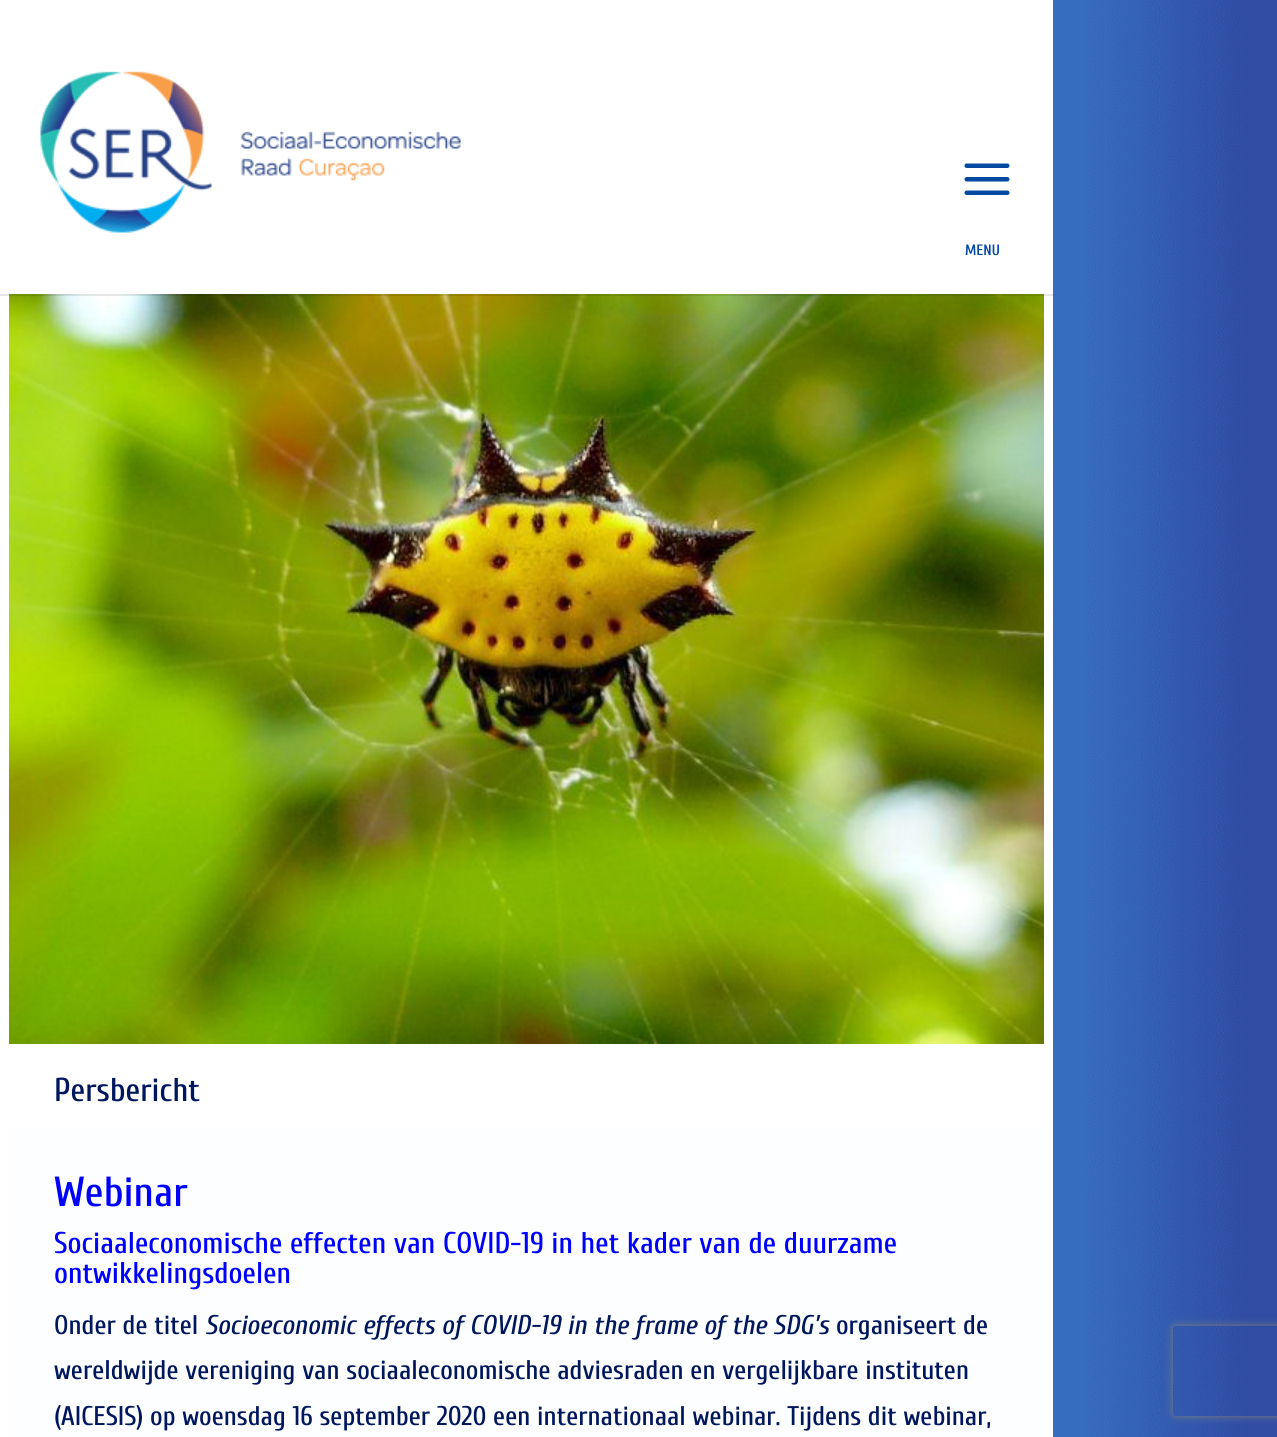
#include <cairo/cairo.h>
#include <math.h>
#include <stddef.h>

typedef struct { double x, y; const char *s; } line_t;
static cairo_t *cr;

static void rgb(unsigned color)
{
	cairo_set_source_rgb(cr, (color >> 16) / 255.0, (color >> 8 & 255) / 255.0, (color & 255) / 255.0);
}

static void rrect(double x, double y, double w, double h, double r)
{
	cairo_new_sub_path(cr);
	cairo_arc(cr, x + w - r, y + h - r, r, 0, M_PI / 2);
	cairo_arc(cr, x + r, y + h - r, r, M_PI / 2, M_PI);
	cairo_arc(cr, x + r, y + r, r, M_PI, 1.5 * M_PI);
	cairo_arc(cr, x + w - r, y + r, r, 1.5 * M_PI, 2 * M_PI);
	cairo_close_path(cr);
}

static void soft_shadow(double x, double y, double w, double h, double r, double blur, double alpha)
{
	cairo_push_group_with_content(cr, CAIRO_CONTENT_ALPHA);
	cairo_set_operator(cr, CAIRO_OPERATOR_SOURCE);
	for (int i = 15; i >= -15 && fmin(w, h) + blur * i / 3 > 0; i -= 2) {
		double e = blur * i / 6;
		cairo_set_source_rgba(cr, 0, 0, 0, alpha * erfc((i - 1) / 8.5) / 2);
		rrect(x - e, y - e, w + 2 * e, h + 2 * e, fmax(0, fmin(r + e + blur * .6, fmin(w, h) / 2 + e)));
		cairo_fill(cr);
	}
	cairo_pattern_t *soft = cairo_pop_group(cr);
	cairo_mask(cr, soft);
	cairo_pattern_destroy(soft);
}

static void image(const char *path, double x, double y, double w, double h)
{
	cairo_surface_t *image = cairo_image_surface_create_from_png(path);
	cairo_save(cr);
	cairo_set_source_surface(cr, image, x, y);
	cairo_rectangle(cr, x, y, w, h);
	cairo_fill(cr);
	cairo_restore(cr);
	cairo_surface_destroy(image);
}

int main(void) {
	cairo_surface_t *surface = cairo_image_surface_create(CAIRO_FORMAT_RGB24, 1277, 1437);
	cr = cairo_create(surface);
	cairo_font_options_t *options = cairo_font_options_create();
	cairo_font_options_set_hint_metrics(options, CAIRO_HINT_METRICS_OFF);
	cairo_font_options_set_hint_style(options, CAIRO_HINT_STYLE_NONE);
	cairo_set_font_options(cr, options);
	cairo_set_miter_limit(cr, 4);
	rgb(0xffffff);
	cairo_paint(cr);
	image("img/1.png", 1053, 0, 224, 1437);
	image("img/4.png", 9, 294, 1035, 750);
	cairo_set_source_rgba(cr, 0, 0, 0, 0.1);
	cairo_rectangle(cr, 0, 294, 1053, 2);
	cairo_fill(cr);
	image("img/2.png", 40, 71, 421, 162);
	image("img/3.png", 964, 163, 46, 32);
	rgb(0xfcfeff);
	cairo_rectangle(cr, 9, 1127, 1035, 310);
	cairo_fill(cr);
	cairo_save(cr);
	cairo_set_fill_rule(cr, CAIRO_FILL_RULE_EVEN_ODD);
	cairo_new_path(cr);
	cairo_move_to(cr, 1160, 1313);
	cairo_line_to(cr, 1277, 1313);
	cairo_line_to(cr, 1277, 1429);
	cairo_line_to(cr, 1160, 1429);
	cairo_close_path(cr);
	cairo_move_to(cr, 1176, 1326);
	cairo_line_to(cr, 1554, 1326);
	cairo_curve_to(cr, 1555.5, 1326, 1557, 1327.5, 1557, 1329);
	cairo_line_to(cr, 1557, 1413);
	cairo_curve_to(cr, 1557, 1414.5, 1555.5, 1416, 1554, 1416);
	cairo_line_to(cr, 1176, 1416);
	cairo_curve_to(cr, 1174.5, 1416, 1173, 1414.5, 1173, 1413);
	cairo_line_to(cr, 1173, 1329);
	cairo_curve_to(cr, 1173, 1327.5, 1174.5, 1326, 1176, 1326);
	cairo_close_path(cr);
	cairo_clip(cr);
	rgb(0x808080);
	soft_shadow(1173, 1326, 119, 90, 3, 4, 1);
	cairo_restore(cr);
	cairo_select_font_face(cr, "Cuprum SemiBold", CAIRO_FONT_SLANT_NORMAL, CAIRO_FONT_WEIGHT_NORMAL);
	cairo_set_font_size(cr, 15);
	rgb(0x0149a1);
	cairo_move_to(cr, 965, 255);
	cairo_show_text(cr, "MENU");
	cairo_select_font_face(cr, "Cuprum Medium", CAIRO_FONT_SLANT_NORMAL, CAIRO_FONT_WEIGHT_NORMAL);
	cairo_set_font_size(cr, 33);
	rgb(0x00175e);
	cairo_move_to(cr, 54, 1101);
	cairo_show_text(cr, "Persbericht");
	cairo_set_font_size(cr, 42);
	rgb(0x0000ff);
	cairo_move_to(cr, 54, 1206);
	cairo_show_text(cr, "Webinar");
	cairo_set_font_size(cr, 30);
	cairo_move_to(cr, 54, 1253);
	cairo_show_text(cr, "Sociaaleconomische effecten van COVID-19 in het kader van de duurzame");
	cairo_move_to(cr, 54, 1283);
	cairo_show_text(cr, "ontwikkelingsdoelen");
	cairo_set_font_size(cr, 27);
	rgb(0x00175e);
	cairo_move_to(cr, 54, 1334);
	cairo_show_text(cr, "Onder de titel");
	cairo_select_font_face(cr, "Cuprum Medium", CAIRO_FONT_SLANT_ITALIC, CAIRO_FONT_WEIGHT_NORMAL);
	cairo_move_to(cr, 205, 1334);
	cairo_show_text(cr, "Socioeconomic effects of COVID-19 in the frame of the SDG’s");
	cairo_select_font_face(cr, "Cuprum Medium", CAIRO_FONT_SLANT_NORMAL, CAIRO_FONT_WEIGHT_NORMAL);
	{
		static const line_t items[] = {
			{836, 1334, "organiseert de"},
			{54, 1379, "wereldwijde vereniging van sociaaleconomische adviesraden en vergelijkbare instituten"},
			{54, 1425, "(AICESIS) op woensdag 16 september 2020 een internationaal webinar. Tijdens dit webinar,"},
		};
		for (size_t i = 0; i < sizeof items / sizeof *items; i++) {
			cairo_move_to(cr, items[i].x, items[i].y);
			cairo_show_text(cr, items[i].s);
		}
	}
	cairo_surface_write_to_png(surface, "page.png");
	cairo_font_options_destroy(options);
	cairo_destroy(cr);
	cairo_surface_destroy(surface);
	return 0;
}
